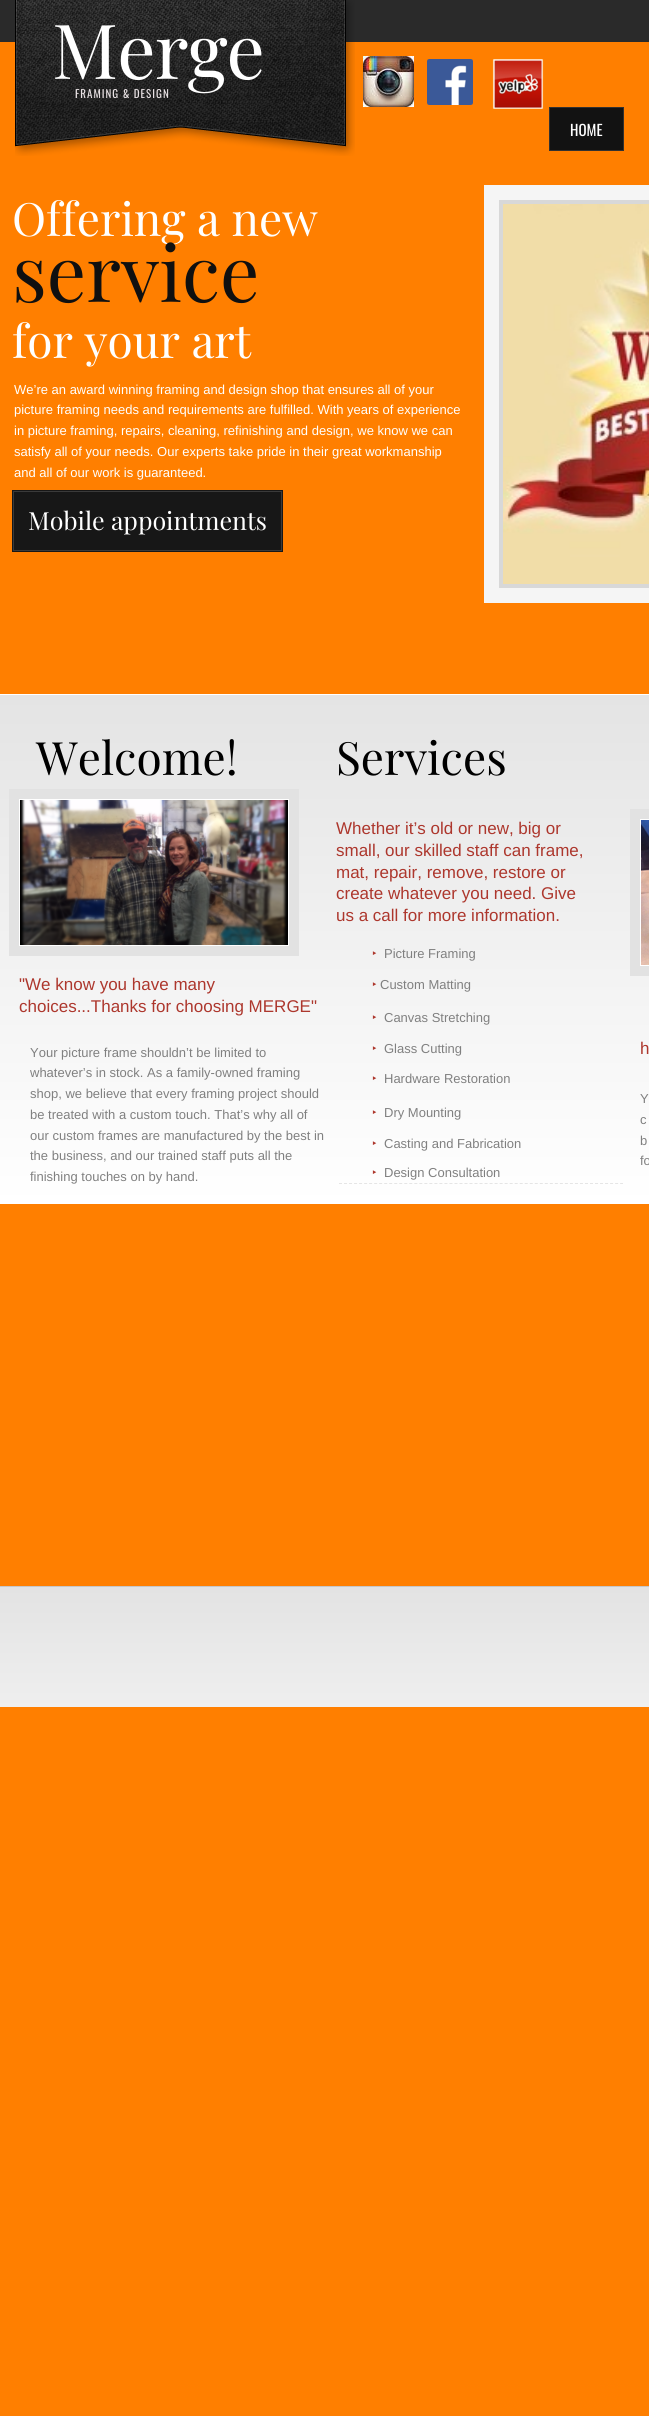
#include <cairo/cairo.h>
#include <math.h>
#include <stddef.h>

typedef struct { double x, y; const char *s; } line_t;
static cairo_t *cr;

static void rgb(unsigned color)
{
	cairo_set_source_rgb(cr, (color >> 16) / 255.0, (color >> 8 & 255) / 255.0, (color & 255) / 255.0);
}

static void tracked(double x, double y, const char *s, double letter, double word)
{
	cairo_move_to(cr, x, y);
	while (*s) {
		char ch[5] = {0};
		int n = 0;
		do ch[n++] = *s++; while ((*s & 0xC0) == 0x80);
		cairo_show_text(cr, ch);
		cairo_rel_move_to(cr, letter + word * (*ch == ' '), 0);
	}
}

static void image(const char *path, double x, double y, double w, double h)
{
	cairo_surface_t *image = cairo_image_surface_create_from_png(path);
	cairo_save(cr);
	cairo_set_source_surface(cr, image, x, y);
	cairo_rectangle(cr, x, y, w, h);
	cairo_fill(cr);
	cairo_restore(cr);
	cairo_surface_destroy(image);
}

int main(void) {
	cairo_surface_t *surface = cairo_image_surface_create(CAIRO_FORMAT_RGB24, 649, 2416);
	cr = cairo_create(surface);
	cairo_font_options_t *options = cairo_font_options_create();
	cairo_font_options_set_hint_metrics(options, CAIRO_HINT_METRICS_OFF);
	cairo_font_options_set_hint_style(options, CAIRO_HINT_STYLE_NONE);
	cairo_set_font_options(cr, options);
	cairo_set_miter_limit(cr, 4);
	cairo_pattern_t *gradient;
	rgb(0xff7f00);
	cairo_paint(cr);
	rgb(0x2a2a2a);
	cairo_rectangle(cr, 0, 0, 649, 42);
	cairo_fill(cr);
	image("img/1.png", 15, 0, 340, 156);
	image("img/2.png", 363, 56, 51, 51);
	image("img/3.png", 427, 59, 46, 46);
	image("img/4.png", 492, 59, 52, 50);
	rgb(0x121212);
	cairo_rectangle(cr, 549.5, 107.5, 74, 43);
	cairo_fill_preserve(cr);
	rgb(0x313131);
	cairo_set_line_width(cr, 1);
	cairo_stroke(cr);
	cairo_rectangle(cr, 491.5, 192.5, 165, 403);
	rgb(0xf5f5f5);
	cairo_set_line_width(cr, 15);
	cairo_stroke(cr);
	cairo_rectangle(cr, 501, 202, 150, 384);
	rgb(0xd8d8d8);
	cairo_set_line_width(cr, 4);
	cairo_stroke(cr);
	image("img/5.png", 503, 204, 146, 380);
	rgb(0x171717);
	cairo_rectangle(cr, 12, 490, 271, 62);
	cairo_fill(cr);
	cairo_rectangle(cr, 13.5, 491.5, 268, 59);
	rgb(0x3a3a3a);
	cairo_set_line_width(cr, 1);
	cairo_stroke(cr);
	gradient = cairo_pattern_create_linear(483, 186, 483, 695);
	cairo_pattern_add_color_stop_rgba(gradient, 0, 0.894, 0.894, 0.894, 1);
	cairo_pattern_add_color_stop_rgba(gradient, 1, 1, 1, 1, 1);
	cairo_set_source(cr, gradient);
	cairo_pattern_destroy(gradient);
	cairo_rectangle(cr, 0, 694, 649, 1);
	cairo_fill(cr);
	gradient = cairo_pattern_create_linear(483, 695, 483, 1204);
	cairo_pattern_add_color_stop_rgba(gradient, 0, 0.894, 0.894, 0.894, 1);
	cairo_pattern_add_color_stop_rgba(gradient, 1, 1, 1, 1, 1);
	cairo_set_source(cr, gradient);
	cairo_pattern_destroy(gradient);
	cairo_rectangle(cr, 0, 695, 649, 509);
	cairo_fill(cr);
	cairo_rectangle(cr, 14, 794, 280, 157);
	rgb(0xe2e2e2);
	cairo_set_line_width(cr, 10);
	cairo_stroke(cr);
	cairo_rectangle(cr, 19.5, 799.5, 269, 146);
	rgb(0xffffff);
	cairo_set_line_width(cr, 1);
	cairo_stroke(cr);
	image("img/6.png", 20, 800, 268, 145);
	cairo_rectangle(cr, 635, 814, 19, 157);
	rgb(0xe2e2e2);
	cairo_set_line_width(cr, 10);
	cairo_stroke(cr);
	cairo_rectangle(cr, 640.5, 819.5, 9, 146);
	rgb(0xffffff);
	cairo_set_line_width(cr, 1);
	cairo_stroke(cr);
	image("img/7.png", 641, 820, 8, 145);
	cairo_new_path(cr);
	cairo_move_to(cr, 339, 1183.5);
	cairo_line_to(cr, 623, 1183.5);
	rgb(0xe5e5e5);
	cairo_set_dash(cr, (double[]){3, 2.02}, 2, 0);
	cairo_stroke(cr);
	gradient = cairo_pattern_create_linear(485, 1587, 485, 1707);
	cairo_pattern_add_color_stop_rgba(gradient, 0, 0.89, 0.89, 0.89, 1);
	cairo_pattern_add_color_stop_rgba(gradient, 1, 0.937, 0.937, 0.937, 1);
	cairo_set_source(cr, gradient);
	cairo_pattern_destroy(gradient);
	cairo_rectangle(cr, 0, 1587, 649, 120);
	cairo_fill(cr);
	rgb(0xc7c7c7);
	cairo_rectangle(cr, 0, 1586, 649, 1);
	cairo_fill(cr);
	cairo_select_font_face(cr, "Playfair Display", CAIRO_FONT_SLANT_NORMAL, CAIRO_FONT_WEIGHT_NORMAL);
	cairo_set_font_size(cr, 76);
	rgb(0xffffff);
	tracked(52, 79, "Merge", -1, 0);
	cairo_select_font_face(cr, "Oswald", CAIRO_FONT_SLANT_NORMAL, CAIRO_FONT_WEIGHT_NORMAL);
	cairo_set_font_size(cr, 11);
	rgb(0xeae3e5);
	tracked(75, 98, "FRAMING & DESIGN", 1, 0);
	cairo_set_font_size(cr, 15);
	rgb(0xffffff);
	cairo_move_to(cr, 570, 136);
	cairo_show_text(cr, "HOME");
	cairo_select_font_face(cr, "Playfair Display", CAIRO_FONT_SLANT_NORMAL, CAIRO_FONT_WEIGHT_NORMAL);
	cairo_set_font_size(cr, 46);
	cairo_move_to(cr, 12, 236);
	cairo_show_text(cr, "Offering a new");
	cairo_set_font_size(cr, 78);
	rgb(0x101010);
	cairo_move_to(cr, 12, 302);
	cairo_show_text(cr, "service");
	cairo_set_font_size(cr, 46);
	rgb(0xffffff);
	cairo_move_to(cr, 12, 358);
	cairo_show_text(cr, "for your art");
	cairo_select_font_face(cr, "Liberation Sans", CAIRO_FONT_SLANT_NORMAL, CAIRO_FONT_WEIGHT_NORMAL);
	cairo_set_font_size(cr, 13);
	{
		static const line_t items[] = {
			{14, 394, "We’re an award winning framing and design shop that ensures all of your"},
			{14, 414, "picture framing needs and requirements are fulfilled. With years of experience"},
			{14, 435, "in picture framing, repairs, cleaning, refinishing and design, we know we can"},
			{14, 456, "satisfy all of your needs. Our experts take pride in their great workmanship"},
			{14, 477, "and all of our work is guaranteed."},
		};
		for (size_t i = 0; i < sizeof items / sizeof *items; i++) {
			cairo_move_to(cr, items[i].x, items[i].y);
			cairo_show_text(cr, items[i].s);
		}
	}
	cairo_select_font_face(cr, "Playfair Display", CAIRO_FONT_SLANT_NORMAL, CAIRO_FONT_WEIGHT_NORMAL);
	cairo_set_font_size(cr, 25);
	cairo_move_to(cr, 28, 530);
	cairo_show_text(cr, "Mobile appointments");
	cairo_set_font_size(cr, 46);
	rgb(0x000000);
	cairo_move_to(cr, 36, 775);
	cairo_show_text(cr, "Welcome!");
	cairo_move_to(cr, 336, 775);
	cairo_show_text(cr, "Services");
	cairo_select_font_face(cr, "Liberation Sans", CAIRO_FONT_SLANT_NORMAL, CAIRO_FONT_WEIGHT_NORMAL);
	cairo_set_font_size(cr, 17);
	rgb(0xad372d);
	{
		static const line_t items[] = {
			{336, 834, "Whether it’s old or new, big or"},
			{336, 856, "small, our skilled staff can frame,"},
			{336, 878, "mat, repair, remove, restore or"},
			{336, 899, "create whatever you need. Give"},
			{336, 921, "us a call for more information."},
		};
		for (size_t i = 0; i < sizeof items / sizeof *items; i++) {
			cairo_move_to(cr, items[i].x, items[i].y);
			cairo_show_text(cr, items[i].s);
		}
	}
	cairo_select_font_face(cr, "Noto Sans", CAIRO_FONT_SLANT_NORMAL, CAIRO_FONT_WEIGHT_NORMAL);
	cairo_set_font_size(cr, 13);
	cairo_move_to(cr, 372, 958);
	cairo_show_text(cr, "‣");
	cairo_select_font_face(cr, "Liberation Sans", CAIRO_FONT_SLANT_NORMAL, CAIRO_FONT_WEIGHT_NORMAL);
	rgb(0x808080);
	cairo_move_to(cr, 384, 958);
	cairo_show_text(cr, "Picture Framing");
	cairo_set_font_size(cr, 17);
	rgb(0xad372d);
	cairo_move_to(cr, 19, 990);
	cairo_show_text(cr, "\"We know you have many");
	cairo_move_to(cr, 19, 1012);
	cairo_show_text(cr, "choices...Thanks for choosing MERGE\"");
	cairo_select_font_face(cr, "Noto Sans", CAIRO_FONT_SLANT_NORMAL, CAIRO_FONT_WEIGHT_NORMAL);
	cairo_set_font_size(cr, 13);
	cairo_move_to(cr, 372, 989);
	cairo_show_text(cr, "‣");
	cairo_select_font_face(cr, "Liberation Sans", CAIRO_FONT_SLANT_NORMAL, CAIRO_FONT_WEIGHT_NORMAL);
	rgb(0x808080);
	cairo_move_to(cr, 380, 989);
	cairo_show_text(cr, "Custom Matting");
	cairo_select_font_face(cr, "Noto Sans", CAIRO_FONT_SLANT_NORMAL, CAIRO_FONT_WEIGHT_NORMAL);
	rgb(0xad372d);
	cairo_move_to(cr, 372, 1022);
	cairo_show_text(cr, "‣");
	cairo_select_font_face(cr, "Liberation Sans", CAIRO_FONT_SLANT_NORMAL, CAIRO_FONT_WEIGHT_NORMAL);
	rgb(0x808080);
	{
		static const line_t items[] = {
			{384, 1022, "Canvas Stretching"},
			{30, 1057, "Your picture frame shouldn’t be limited to"},
			{30, 1077, "whatever’s in stock. As a family-owned framing"},
			{30, 1098, "shop, we believe that every framing project should"},
			{30, 1119, "be treated with a custom touch. That’s why all of"},
			{30, 1140, "our custom frames are manufactured by the best in"},
			{30, 1160, "the business, and our trained staff puts all the"},
			{30, 1181, "finishing touches on by hand."},
		};
		for (size_t i = 0; i < sizeof items / sizeof *items; i++) {
			cairo_move_to(cr, items[i].x, items[i].y);
			cairo_show_text(cr, items[i].s);
		}
	}
	cairo_select_font_face(cr, "Noto Sans", CAIRO_FONT_SLANT_NORMAL, CAIRO_FONT_WEIGHT_NORMAL);
	rgb(0xad372d);
	cairo_move_to(cr, 372, 1053);
	cairo_show_text(cr, "‣");
	cairo_select_font_face(cr, "Liberation Sans", CAIRO_FONT_SLANT_NORMAL, CAIRO_FONT_WEIGHT_NORMAL);
	rgb(0x808080);
	cairo_move_to(cr, 384, 1053);
	cairo_show_text(cr, "Glass Cutting");
	cairo_set_font_size(cr, 17);
	rgb(0xad372d);
	cairo_move_to(cr, 640, 1054);
	cairo_show_text(cr, "h");
	cairo_select_font_face(cr, "Noto Sans", CAIRO_FONT_SLANT_NORMAL, CAIRO_FONT_WEIGHT_NORMAL);
	cairo_set_font_size(cr, 13);
	cairo_move_to(cr, 372, 1083);
	cairo_show_text(cr, "‣");
	cairo_select_font_face(cr, "Liberation Sans", CAIRO_FONT_SLANT_NORMAL, CAIRO_FONT_WEIGHT_NORMAL);
	rgb(0x808080);
	cairo_move_to(cr, 384, 1083);
	cairo_show_text(cr, "Hardware Restoration");
	cairo_select_font_face(cr, "Noto Sans", CAIRO_FONT_SLANT_NORMAL, CAIRO_FONT_WEIGHT_NORMAL);
	rgb(0xad372d);
	cairo_move_to(cr, 372, 1117);
	cairo_show_text(cr, "‣");
	cairo_select_font_face(cr, "Liberation Sans", CAIRO_FONT_SLANT_NORMAL, CAIRO_FONT_WEIGHT_NORMAL);
	rgb(0x808080);
	{
		static const line_t items[] = {
			{384, 1117, "Dry Mounting"},
			{640, 1103, "Y"},
			{640, 1124, "c"},
			{640, 1145, "b"},
			{640, 1165, "fo"},
		};
		for (size_t i = 0; i < sizeof items / sizeof *items; i++) {
			cairo_move_to(cr, items[i].x, items[i].y);
			cairo_show_text(cr, items[i].s);
		}
	}
	cairo_select_font_face(cr, "Noto Sans", CAIRO_FONT_SLANT_NORMAL, CAIRO_FONT_WEIGHT_NORMAL);
	rgb(0xad372d);
	cairo_move_to(cr, 372, 1148);
	cairo_show_text(cr, "‣");
	cairo_select_font_face(cr, "Liberation Sans", CAIRO_FONT_SLANT_NORMAL, CAIRO_FONT_WEIGHT_NORMAL);
	rgb(0x808080);
	cairo_move_to(cr, 384, 1148);
	cairo_show_text(cr, "Casting and Fabrication");
	cairo_select_font_face(cr, "Noto Sans", CAIRO_FONT_SLANT_NORMAL, CAIRO_FONT_WEIGHT_NORMAL);
	rgb(0xad372d);
	cairo_move_to(cr, 372, 1177);
	cairo_show_text(cr, "‣");
	cairo_select_font_face(cr, "Liberation Sans", CAIRO_FONT_SLANT_NORMAL, CAIRO_FONT_WEIGHT_NORMAL);
	rgb(0x808080);
	cairo_move_to(cr, 384, 1177);
	cairo_show_text(cr, "Design Consultation");
	cairo_surface_write_to_png(surface, "page.png");
	cairo_font_options_destroy(options);
	cairo_destroy(cr);
	cairo_surface_destroy(surface);
	return 0;
}
